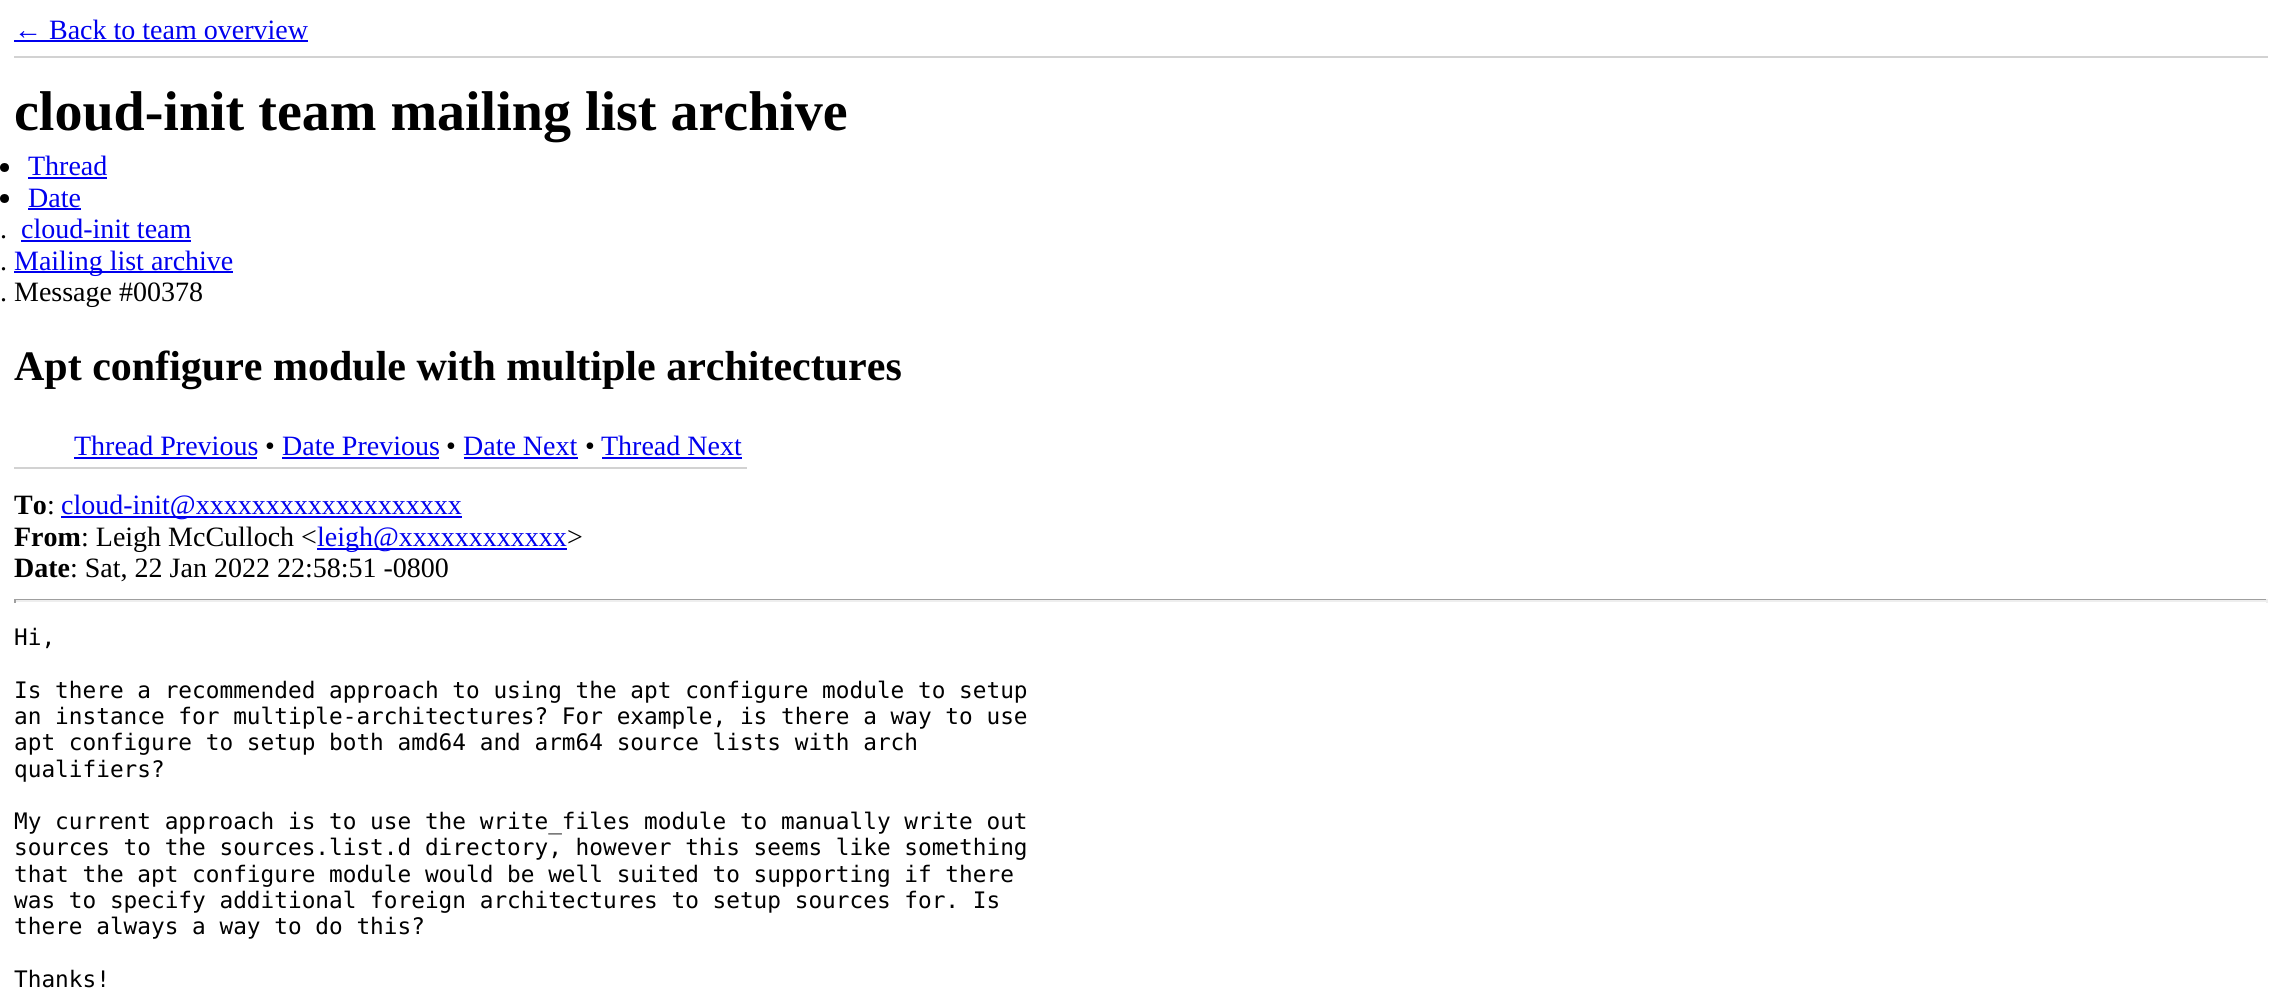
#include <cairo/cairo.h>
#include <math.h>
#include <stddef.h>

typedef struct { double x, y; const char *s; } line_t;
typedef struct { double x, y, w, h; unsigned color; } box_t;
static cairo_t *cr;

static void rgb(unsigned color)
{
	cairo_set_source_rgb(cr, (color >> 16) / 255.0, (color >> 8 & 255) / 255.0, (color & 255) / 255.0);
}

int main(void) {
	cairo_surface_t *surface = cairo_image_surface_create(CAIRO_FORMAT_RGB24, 2282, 1006);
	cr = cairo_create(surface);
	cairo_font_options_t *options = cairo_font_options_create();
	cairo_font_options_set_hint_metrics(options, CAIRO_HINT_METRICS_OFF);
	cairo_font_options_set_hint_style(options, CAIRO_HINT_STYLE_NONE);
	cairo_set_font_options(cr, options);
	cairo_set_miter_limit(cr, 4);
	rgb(0xffffff);
	cairo_paint(cr);
	rgb(0xd2d2d2);
	cairo_rectangle(cr, 14, 56, 2254, 2);
	cairo_fill(cr);
	rgb(0x0000ee);
	cairo_rectangle(cr, 14, 40, 294, 2);
	cairo_fill(cr);
	rgb(0x000000);
	cairo_arc(cr, 4.5, 167.5, 4.5, 0, 2 * M_PI);
	cairo_fill(cr);
	rgb(0x0000ee);
	cairo_rectangle(cr, 28, 177, 79, 2);
	cairo_fill(cr);
	rgb(0x000000);
	cairo_arc(cr, 4.5, 198.5, 4.5, 0, 2 * M_PI);
	cairo_fill(cr);
	{
		static const box_t items[] = {
			{28, 208, 53, 2, 0x0000ee},
			{21, 240, 170, 2, 0x0000ee},
			{14, 271, 219, 2, 0x0000ee},
			{14, 467, 733, 2, 0xd2d2d2},
			{74, 457, 183, 2, 0x0000ee},
			{282, 457, 157, 2, 0x0000ee},
			{464, 457, 114, 2, 0x0000ee},
			{602, 457, 140, 2, 0x0000ee},
			{61, 516, 401, 2, 0x0000ee},
			{317, 548, 250, 2, 0x0000ee},
			{14, 599, 2254, 1, 0x9f9f9f},
			{2266, 599, 2, 4, 0xeeeeee},
			{14, 600, 2254, 2, 0xeeeeee},
			{14, 599, 2, 4, 0x9f9f9f},
		};
		for (size_t i = 0; i < sizeof items / sizeof *items; i++) {
			rgb(items[i].color);
			cairo_rectangle(cr, items[i].x, items[i].y, items[i].w, items[i].h);
			cairo_fill(cr);
		}
	}
	cairo_select_font_face(cr, "Liberation Serif", CAIRO_FONT_SLANT_NORMAL, CAIRO_FONT_WEIGHT_NORMAL);
	cairo_set_font_size(cr, 28);
	rgb(0x0000ee);
	cairo_move_to(cr, 14, 39);
	cairo_show_text(cr, "← Back to team overview");
	cairo_select_font_face(cr, "Liberation Serif", CAIRO_FONT_SLANT_NORMAL, CAIRO_FONT_WEIGHT_BOLD);
	cairo_set_font_size(cr, 56);
	rgb(0x000000);
	cairo_move_to(cr, 14, 130);
	cairo_show_text(cr, "cloud-init team mailing list archive");
	cairo_select_font_face(cr, "Liberation Serif", CAIRO_FONT_SLANT_NORMAL, CAIRO_FONT_WEIGHT_NORMAL);
	cairo_set_font_size(cr, 28);
	rgb(0x0000ee);
	cairo_move_to(cr, 28, 175);
	cairo_show_text(cr, "Thread");
	cairo_move_to(cr, 28, 207);
	cairo_show_text(cr, "Date");
	rgb(0x000000);
	cairo_move_to(cr, 0, 238);
	cairo_show_text(cr, ".");
	rgb(0x0000ee);
	cairo_move_to(cr, 21, 238);
	cairo_show_text(cr, "cloud-init team");
	rgb(0x000000);
	cairo_move_to(cr, 0, 270);
	cairo_show_text(cr, ".");
	rgb(0x0000ee);
	cairo_move_to(cr, 14, 270);
	cairo_show_text(cr, "Mailing list archive");
	rgb(0x000000);
	cairo_move_to(cr, 0, 301);
	cairo_show_text(cr, ". Message #00378");
	cairo_select_font_face(cr, "Liberation Serif", CAIRO_FONT_SLANT_NORMAL, CAIRO_FONT_WEIGHT_BOLD);
	cairo_set_font_size(cr, 42);
	cairo_move_to(cr, 14, 380);
	cairo_show_text(cr, "Apt configure module with multiple architectures");
	cairo_select_font_face(cr, "Liberation Serif", CAIRO_FONT_SLANT_NORMAL, CAIRO_FONT_WEIGHT_NORMAL);
	cairo_set_font_size(cr, 28);
	rgb(0x0000ee);
	cairo_move_to(cr, 74, 455);
	cairo_show_text(cr, "Thread Previous");
	rgb(0x000000);
	cairo_move_to(cr, 265, 455);
	cairo_show_text(cr, "•");
	rgb(0x0000ee);
	cairo_move_to(cr, 282, 455);
	cairo_show_text(cr, "Date Previous");
	rgb(0x000000);
	cairo_move_to(cr, 446, 455);
	cairo_show_text(cr, "•");
	rgb(0x0000ee);
	cairo_move_to(cr, 463, 455);
	cairo_show_text(cr, "Date Next");
	rgb(0x000000);
	cairo_move_to(cr, 585, 455);
	cairo_show_text(cr, "•");
	rgb(0x0000ee);
	cairo_move_to(cr, 601, 455);
	cairo_show_text(cr, "Thread Next");
	cairo_select_font_face(cr, "Liberation Serif", CAIRO_FONT_SLANT_NORMAL, CAIRO_FONT_WEIGHT_BOLD);
	rgb(0x000000);
	cairo_move_to(cr, 14, 514);
	cairo_show_text(cr, "To");
	cairo_select_font_face(cr, "Liberation Serif", CAIRO_FONT_SLANT_NORMAL, CAIRO_FONT_WEIGHT_NORMAL);
	cairo_move_to(cr, 47, 514);
	cairo_show_text(cr, ":");
	rgb(0x0000ee);
	cairo_move_to(cr, 61, 514);
	cairo_show_text(cr, "cloud-init@xxxxxxxxxxxxxxxxxxx");
	cairo_select_font_face(cr, "Liberation Serif", CAIRO_FONT_SLANT_NORMAL, CAIRO_FONT_WEIGHT_BOLD);
	rgb(0x000000);
	cairo_move_to(cr, 14, 546);
	cairo_show_text(cr, "From");
	cairo_select_font_face(cr, "Liberation Serif", CAIRO_FONT_SLANT_NORMAL, CAIRO_FONT_WEIGHT_NORMAL);
	cairo_move_to(cr, 81, 546);
	cairo_show_text(cr, ": Leigh McCulloch <");
	rgb(0x0000ee);
	cairo_move_to(cr, 317, 546);
	cairo_show_text(cr, "leigh@xxxxxxxxxxxx");
	rgb(0x000000);
	cairo_move_to(cr, 567, 546);
	cairo_show_text(cr, ">");
	cairo_select_font_face(cr, "Liberation Serif", CAIRO_FONT_SLANT_NORMAL, CAIRO_FONT_WEIGHT_BOLD);
	cairo_move_to(cr, 14, 577);
	cairo_show_text(cr, "Date");
	cairo_select_font_face(cr, "Liberation Serif", CAIRO_FONT_SLANT_NORMAL, CAIRO_FONT_WEIGHT_NORMAL);
	cairo_move_to(cr, 70, 577);
	cairo_show_text(cr, ": Sat, 22 Jan 2022 22:58:51 -0800");
	cairo_select_font_face(cr, "DejaVu Sans Mono", CAIRO_FONT_SLANT_NORMAL, CAIRO_FONT_WEIGHT_NORMAL);
	cairo_set_font_size(cr, 22.75);
	{
		static const line_t items[] = {
			{14, 645, "Hi,"},
			{14, 698, "Is there a recommended approach to using the apt configure module to setup"},
			{14, 724, "an instance for multiple-architectures? For example, is there a way to use"},
			{14, 750, "apt configure to setup both amd64 and arm64 source lists with arch"},
			{14, 777, "qualifiers?"},
			{14, 829, "My current approach is to use the write_files module to manually write out"},
			{14, 855, "sources to the sources.list.d directory, however this seems like something"},
			{14, 882, "that the apt configure module would be well suited to supporting if there"},
			{14, 908, "was to specify additional foreign architectures to setup sources for. Is"},
			{14, 934, "there always a way to do this?"},
			{14, 987, "Thanks!"},
		};
		for (size_t i = 0; i < sizeof items / sizeof *items; i++) {
			cairo_move_to(cr, items[i].x, items[i].y);
			cairo_show_text(cr, items[i].s);
		}
	}
	cairo_surface_write_to_png(surface, "page.png");
	cairo_font_options_destroy(options);
	cairo_destroy(cr);
	cairo_surface_destroy(surface);
	return 0;
}
